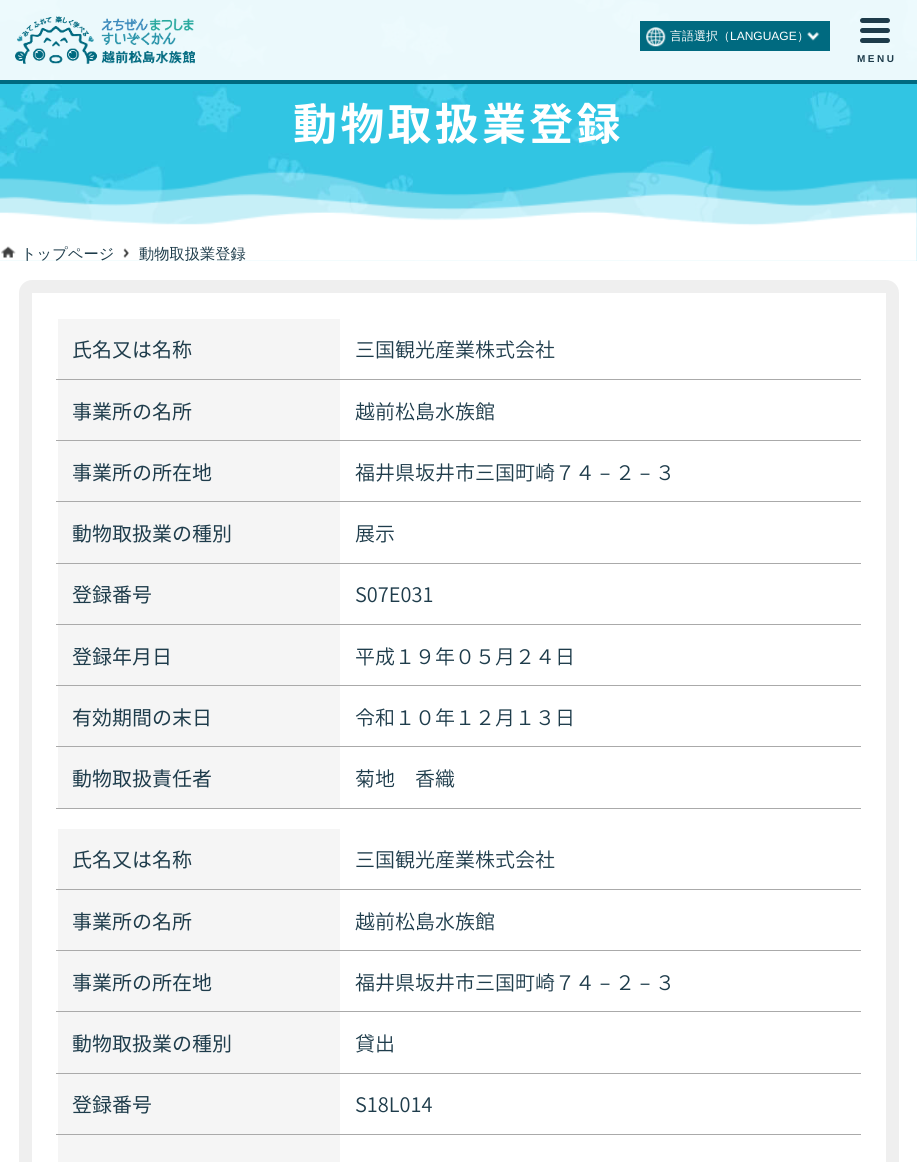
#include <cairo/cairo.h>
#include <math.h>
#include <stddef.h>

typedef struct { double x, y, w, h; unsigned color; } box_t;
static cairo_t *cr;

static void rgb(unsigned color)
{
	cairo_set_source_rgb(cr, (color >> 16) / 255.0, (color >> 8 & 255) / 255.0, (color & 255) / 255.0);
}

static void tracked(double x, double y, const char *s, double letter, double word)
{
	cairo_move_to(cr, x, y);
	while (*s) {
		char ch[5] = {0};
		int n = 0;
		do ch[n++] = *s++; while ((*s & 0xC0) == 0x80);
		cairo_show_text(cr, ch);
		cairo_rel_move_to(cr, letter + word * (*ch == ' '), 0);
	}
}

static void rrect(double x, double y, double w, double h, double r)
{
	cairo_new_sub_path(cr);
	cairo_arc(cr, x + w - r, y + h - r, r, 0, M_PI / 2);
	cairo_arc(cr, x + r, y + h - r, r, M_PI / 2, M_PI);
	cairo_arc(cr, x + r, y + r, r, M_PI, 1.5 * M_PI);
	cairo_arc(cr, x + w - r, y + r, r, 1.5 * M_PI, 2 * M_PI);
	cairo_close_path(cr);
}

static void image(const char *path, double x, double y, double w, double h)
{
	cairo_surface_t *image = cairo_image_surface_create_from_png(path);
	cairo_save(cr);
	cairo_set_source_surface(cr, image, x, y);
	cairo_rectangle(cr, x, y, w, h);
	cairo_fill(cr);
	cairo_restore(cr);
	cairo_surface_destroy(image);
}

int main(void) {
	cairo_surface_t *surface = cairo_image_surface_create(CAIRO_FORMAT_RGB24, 917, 1162);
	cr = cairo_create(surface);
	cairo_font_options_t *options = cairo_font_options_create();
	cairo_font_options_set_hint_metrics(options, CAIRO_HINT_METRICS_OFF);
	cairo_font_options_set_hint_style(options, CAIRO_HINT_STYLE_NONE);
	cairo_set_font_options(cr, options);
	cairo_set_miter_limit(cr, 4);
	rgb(0xffffff);
	cairo_paint(cr);
	image("img/1.png", 0, 0, 917, 261);
	cairo_set_source_rgba(cr, 1, 1, 1, 0.9);
	cairo_rectangle(cr, 0, 0, 917, 80);
	cairo_fill(cr);
	rgb(0x006a80);
	cairo_rectangle(cr, 640, 21, 190, 30);
	cairo_fill(cr);
	image("img/2.png", 646, 27, 20, 20);
	image("img/3.png", 807, 32, 13, 9);
	cairo_rectangle(cr, 0, 80, 917, 4);
	cairo_fill(cr);
	image("img/4.png", 15, 16, 180, 48);
	rgb(0x1e3c4b);
	rrect(860, 18, 30, 5, 2.5);
	cairo_fill(cr);
	rrect(860, 28, 30, 5, 2.5);
	cairo_fill(cr);
	rrect(860, 38, 30, 5, 2.5);
	cairo_fill(cr);
	image("img/5.png", 0, 171, 917, 90);
	image("img/6.png", 1, 246, 15, 12);
	image("img/7.png", 123, 248, 6, 10);
	rrect(25.5, 286.5, 867, 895, 6.5);
	rgb(0xefefef);
	cairo_set_line_width(cr, 13);
	cairo_stroke(cr);
	{
		static const box_t items[] = {
			{58, 319, 282, 60, 0xf5f5f5},
			{56, 379, 805, 1, 0xaaaaaa},
			{58, 380, 282, 60, 0xf5f5f5},
			{56, 440, 805, 1, 0xaaaaaa},
			{58, 441, 282, 60, 0xf5f5f5},
			{56, 501, 805, 1, 0xaaaaaa},
			{58, 502, 282, 61, 0xf5f5f5},
			{56, 563, 805, 1, 0xaaaaaa},
			{58, 564, 282, 60, 0xf5f5f5},
			{56, 624, 805, 1, 0xaaaaaa},
			{58, 625, 282, 60, 0xf5f5f5},
			{56, 685, 805, 1, 0xaaaaaa},
			{58, 686, 282, 60, 0xf5f5f5},
			{56, 746, 805, 1, 0xaaaaaa},
			{58, 747, 282, 61, 0xf5f5f5},
			{56, 808, 805, 1, 0xaaaaaa},
			{58, 829, 282, 60, 0xf5f5f5},
			{56, 889, 805, 1, 0xaaaaaa},
			{58, 890, 282, 60, 0xf5f5f5},
			{56, 950, 805, 1, 0xaaaaaa},
			{58, 951, 282, 60, 0xf5f5f5},
			{56, 1011, 805, 1, 0xaaaaaa},
			{58, 1012, 282, 61, 0xf5f5f5},
			{56, 1073, 805, 1, 0xaaaaaa},
			{58, 1074, 282, 60, 0xf5f5f5},
			{56, 1134, 805, 1, 0xaaaaaa},
			{58, 1135, 282, 27, 0xf5f5f5},
		};
		for (size_t i = 0; i < sizeof items / sizeof *items; i++) {
			rgb(items[i].color);
			cairo_rectangle(cr, items[i].x, items[i].y, items[i].w, items[i].h);
			cairo_fill(cr);
		}
	}
	cairo_select_font_face(cr, "WenQuanYi Zen Hei Medium", CAIRO_FONT_SLANT_NORMAL, CAIRO_FONT_WEIGHT_NORMAL);
	cairo_set_font_size(cr, 12);
	rgb(0xffffff);
	cairo_move_to(cr, 670, 40);
	cairo_show_text(cr, "言語選択（");
	cairo_select_font_face(cr, "Liberation Sans", CAIRO_FONT_SLANT_NORMAL, CAIRO_FONT_WEIGHT_NORMAL);
	cairo_move_to(cr, 730, 40);
	cairo_show_text(cr, "LANGUAGE");
	cairo_select_font_face(cr, "WenQuanYi Zen Hei Medium", CAIRO_FONT_SLANT_NORMAL, CAIRO_FONT_WEIGHT_NORMAL);
	cairo_move_to(cr, 797, 40);
	cairo_show_text(cr, "）");
	cairo_select_font_face(cr, "Liberation Sans", CAIRO_FONT_SLANT_NORMAL, CAIRO_FONT_WEIGHT_BOLD);
	cairo_set_font_size(cr, 10);
	rgb(0x1e3c4b);
	tracked(857, 62, "MENU", 2.5, 0);
	cairo_select_font_face(cr, "Noto Sans JP", CAIRO_FONT_SLANT_NORMAL, CAIRO_FONT_WEIGHT_BOLD);
	cairo_set_font_size(cr, 44);
	rgb(0xffffff);
	tracked(293, 140, "動物取扱業登録", 3.25, 0);
	cairo_select_font_face(cr, "WenQuanYi Zen Hei Medium", CAIRO_FONT_SLANT_NORMAL, CAIRO_FONT_WEIGHT_NORMAL);
	cairo_set_font_size(cr, 15.25);
	rgb(0x1e3c4b);
	cairo_move_to(cr, 21, 259);
	cairo_show_text(cr, "トップページ");
	cairo_move_to(cr, 139, 259);
	cairo_show_text(cr, "動物取扱業登録");
	rgb(0xffffff);
	cairo_rectangle(cr, 157, 261, 30, 1);
	cairo_fill(cr);
	cairo_select_font_face(cr, "Noto Sans JP", CAIRO_FONT_SLANT_NORMAL, CAIRO_FONT_WEIGHT_NORMAL);
	cairo_set_font_size(cr, 20);
	rgb(0x1e3c4b);
	cairo_move_to(cr, 72, 357);
	cairo_show_text(cr, "氏名又は名称");
	cairo_select_font_face(cr, "Noto Sans JP Light", CAIRO_FONT_SLANT_NORMAL, CAIRO_FONT_WEIGHT_NORMAL);
	cairo_move_to(cr, 355, 357);
	cairo_show_text(cr, "三国観光産業株式会社");
	cairo_select_font_face(cr, "Noto Sans JP", CAIRO_FONT_SLANT_NORMAL, CAIRO_FONT_WEIGHT_NORMAL);
	cairo_move_to(cr, 72, 419);
	cairo_show_text(cr, "事業所の名所");
	cairo_select_font_face(cr, "Noto Sans JP Light", CAIRO_FONT_SLANT_NORMAL, CAIRO_FONT_WEIGHT_NORMAL);
	cairo_move_to(cr, 355, 419);
	cairo_show_text(cr, "越前松島水族館");
	cairo_select_font_face(cr, "Noto Sans JP", CAIRO_FONT_SLANT_NORMAL, CAIRO_FONT_WEIGHT_NORMAL);
	cairo_move_to(cr, 72, 480);
	cairo_show_text(cr, "事業所の所在地");
	cairo_select_font_face(cr, "Noto Sans JP Light", CAIRO_FONT_SLANT_NORMAL, CAIRO_FONT_WEIGHT_NORMAL);
	cairo_move_to(cr, 355, 480);
	cairo_show_text(cr, "福井県坂井市三国町崎７４");
	cairo_select_font_face(cr, "WenQuanYi Zen Hei Medium", CAIRO_FONT_SLANT_NORMAL, CAIRO_FONT_WEIGHT_NORMAL);
	cairo_move_to(cr, 595, 480);
	cairo_show_text(cr, "－");
	cairo_select_font_face(cr, "Noto Sans JP Light", CAIRO_FONT_SLANT_NORMAL, CAIRO_FONT_WEIGHT_NORMAL);
	cairo_move_to(cr, 615, 480);
	cairo_show_text(cr, "２");
	cairo_select_font_face(cr, "WenQuanYi Zen Hei Medium", CAIRO_FONT_SLANT_NORMAL, CAIRO_FONT_WEIGHT_NORMAL);
	cairo_move_to(cr, 635, 480);
	cairo_show_text(cr, "－");
	cairo_select_font_face(cr, "Noto Sans JP Light", CAIRO_FONT_SLANT_NORMAL, CAIRO_FONT_WEIGHT_NORMAL);
	cairo_move_to(cr, 655, 480);
	cairo_show_text(cr, "３");
	cairo_select_font_face(cr, "Noto Sans JP", CAIRO_FONT_SLANT_NORMAL, CAIRO_FONT_WEIGHT_NORMAL);
	cairo_move_to(cr, 72, 541);
	cairo_show_text(cr, "動物取扱業の種別");
	cairo_select_font_face(cr, "Noto Sans JP Light", CAIRO_FONT_SLANT_NORMAL, CAIRO_FONT_WEIGHT_NORMAL);
	cairo_move_to(cr, 355, 541);
	cairo_show_text(cr, "展示");
	cairo_select_font_face(cr, "Noto Sans JP", CAIRO_FONT_SLANT_NORMAL, CAIRO_FONT_WEIGHT_NORMAL);
	cairo_move_to(cr, 72, 602);
	cairo_show_text(cr, "登録番号");
	cairo_select_font_face(cr, "Noto Sans JP Light", CAIRO_FONT_SLANT_NORMAL, CAIRO_FONT_WEIGHT_NORMAL);
	cairo_move_to(cr, 355, 602);
	cairo_show_text(cr, "S07E031");
	cairo_select_font_face(cr, "Noto Sans JP", CAIRO_FONT_SLANT_NORMAL, CAIRO_FONT_WEIGHT_NORMAL);
	cairo_move_to(cr, 72, 664);
	cairo_show_text(cr, "登録年月日");
	cairo_select_font_face(cr, "Noto Sans JP Light", CAIRO_FONT_SLANT_NORMAL, CAIRO_FONT_WEIGHT_NORMAL);
	cairo_move_to(cr, 355, 664);
	cairo_show_text(cr, "平成１９年０５月２４日");
	cairo_select_font_face(cr, "Noto Sans JP", CAIRO_FONT_SLANT_NORMAL, CAIRO_FONT_WEIGHT_NORMAL);
	cairo_move_to(cr, 72, 725);
	cairo_show_text(cr, "有効期間の末日");
	cairo_select_font_face(cr, "Noto Sans JP Light", CAIRO_FONT_SLANT_NORMAL, CAIRO_FONT_WEIGHT_NORMAL);
	cairo_move_to(cr, 355, 725);
	cairo_show_text(cr, "令和１０年１２月１３日");
	cairo_select_font_face(cr, "Noto Sans JP", CAIRO_FONT_SLANT_NORMAL, CAIRO_FONT_WEIGHT_NORMAL);
	cairo_move_to(cr, 72, 786);
	cairo_show_text(cr, "動物取扱責任者");
	cairo_select_font_face(cr, "Noto Sans JP Light", CAIRO_FONT_SLANT_NORMAL, CAIRO_FONT_WEIGHT_NORMAL);
	cairo_move_to(cr, 355, 786);
	cairo_show_text(cr, "菊地　香織");
	cairo_select_font_face(cr, "Noto Sans JP", CAIRO_FONT_SLANT_NORMAL, CAIRO_FONT_WEIGHT_NORMAL);
	cairo_move_to(cr, 72, 867);
	cairo_show_text(cr, "氏名又は名称");
	cairo_select_font_face(cr, "Noto Sans JP Light", CAIRO_FONT_SLANT_NORMAL, CAIRO_FONT_WEIGHT_NORMAL);
	cairo_move_to(cr, 355, 867);
	cairo_show_text(cr, "三国観光産業株式会社");
	cairo_select_font_face(cr, "Noto Sans JP", CAIRO_FONT_SLANT_NORMAL, CAIRO_FONT_WEIGHT_NORMAL);
	cairo_move_to(cr, 72, 929);
	cairo_show_text(cr, "事業所の名所");
	cairo_select_font_face(cr, "Noto Sans JP Light", CAIRO_FONT_SLANT_NORMAL, CAIRO_FONT_WEIGHT_NORMAL);
	cairo_move_to(cr, 355, 929);
	cairo_show_text(cr, "越前松島水族館");
	cairo_select_font_face(cr, "Noto Sans JP", CAIRO_FONT_SLANT_NORMAL, CAIRO_FONT_WEIGHT_NORMAL);
	cairo_move_to(cr, 72, 990);
	cairo_show_text(cr, "事業所の所在地");
	cairo_select_font_face(cr, "Noto Sans JP Light", CAIRO_FONT_SLANT_NORMAL, CAIRO_FONT_WEIGHT_NORMAL);
	cairo_move_to(cr, 355, 990);
	cairo_show_text(cr, "福井県坂井市三国町崎７４");
	cairo_select_font_face(cr, "WenQuanYi Zen Hei Medium", CAIRO_FONT_SLANT_NORMAL, CAIRO_FONT_WEIGHT_NORMAL);
	cairo_move_to(cr, 595, 990);
	cairo_show_text(cr, "－");
	cairo_select_font_face(cr, "Noto Sans JP Light", CAIRO_FONT_SLANT_NORMAL, CAIRO_FONT_WEIGHT_NORMAL);
	cairo_move_to(cr, 615, 990);
	cairo_show_text(cr, "２");
	cairo_select_font_face(cr, "WenQuanYi Zen Hei Medium", CAIRO_FONT_SLANT_NORMAL, CAIRO_FONT_WEIGHT_NORMAL);
	cairo_move_to(cr, 635, 990);
	cairo_show_text(cr, "－");
	cairo_select_font_face(cr, "Noto Sans JP Light", CAIRO_FONT_SLANT_NORMAL, CAIRO_FONT_WEIGHT_NORMAL);
	cairo_move_to(cr, 655, 990);
	cairo_show_text(cr, "３");
	cairo_select_font_face(cr, "Noto Sans JP", CAIRO_FONT_SLANT_NORMAL, CAIRO_FONT_WEIGHT_NORMAL);
	cairo_move_to(cr, 72, 1051);
	cairo_show_text(cr, "動物取扱業の種別");
	cairo_select_font_face(cr, "Noto Sans JP Light", CAIRO_FONT_SLANT_NORMAL, CAIRO_FONT_WEIGHT_NORMAL);
	cairo_move_to(cr, 355, 1051);
	cairo_show_text(cr, "貸出");
	cairo_select_font_face(cr, "Noto Sans JP", CAIRO_FONT_SLANT_NORMAL, CAIRO_FONT_WEIGHT_NORMAL);
	cairo_move_to(cr, 72, 1112);
	cairo_show_text(cr, "登録番号");
	cairo_select_font_face(cr, "Noto Sans JP Light", CAIRO_FONT_SLANT_NORMAL, CAIRO_FONT_WEIGHT_NORMAL);
	cairo_move_to(cr, 355, 1112);
	cairo_show_text(cr, "S18L014");
	cairo_surface_write_to_png(surface, "page.png");
	cairo_font_options_destroy(options);
	cairo_destroy(cr);
	cairo_surface_destroy(surface);
	return 0;
}
